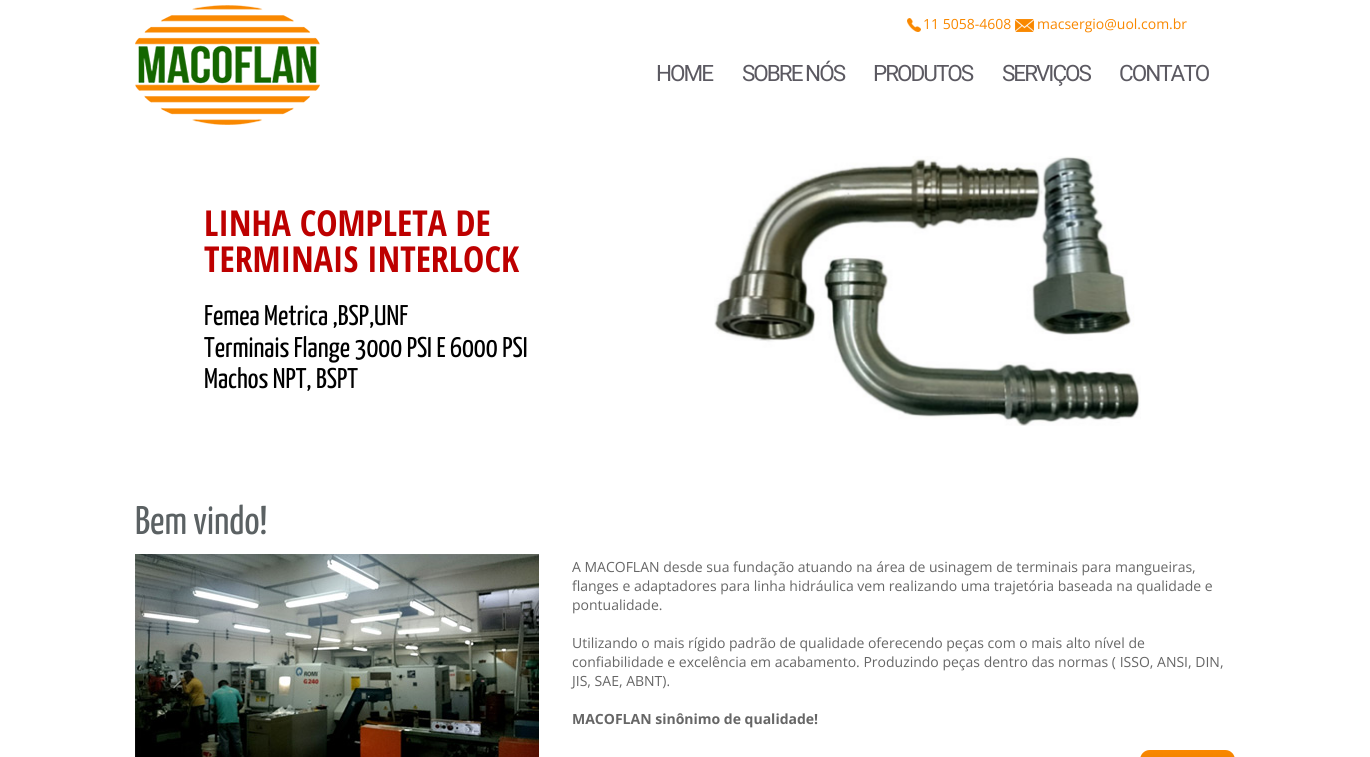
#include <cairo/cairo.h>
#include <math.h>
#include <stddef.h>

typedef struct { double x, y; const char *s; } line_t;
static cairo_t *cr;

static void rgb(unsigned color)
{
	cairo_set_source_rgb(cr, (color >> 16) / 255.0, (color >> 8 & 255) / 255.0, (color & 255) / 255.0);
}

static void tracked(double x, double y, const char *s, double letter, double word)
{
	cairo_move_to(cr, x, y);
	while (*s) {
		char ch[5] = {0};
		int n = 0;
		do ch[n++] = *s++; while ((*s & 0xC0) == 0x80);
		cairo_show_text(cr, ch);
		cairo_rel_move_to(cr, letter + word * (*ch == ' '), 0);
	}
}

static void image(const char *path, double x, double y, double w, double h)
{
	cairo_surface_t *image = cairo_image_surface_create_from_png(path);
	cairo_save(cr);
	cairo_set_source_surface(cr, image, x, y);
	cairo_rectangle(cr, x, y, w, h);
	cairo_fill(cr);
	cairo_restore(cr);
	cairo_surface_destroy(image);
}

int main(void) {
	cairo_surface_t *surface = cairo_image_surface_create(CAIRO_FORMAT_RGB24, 1370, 757);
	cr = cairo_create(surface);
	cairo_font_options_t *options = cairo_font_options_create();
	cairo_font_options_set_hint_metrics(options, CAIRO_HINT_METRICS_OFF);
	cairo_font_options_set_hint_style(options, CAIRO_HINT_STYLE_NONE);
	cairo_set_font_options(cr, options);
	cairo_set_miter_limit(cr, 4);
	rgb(0xffffff);
	cairo_paint(cr);
	image("img/1.png", 135, 5, 185, 120);
	image("img/2.png", 907, 18, 14, 14);
	image("img/3.png", 1015, 19, 19, 13);
	image("img/4.png", 714, 156, 427, 270);
	image("img/5.png", 135, 554, 404, 203);
	image("img/6.png", 1140, 750, 95, 7);
	cairo_select_font_face(cr, "Open Sans", CAIRO_FONT_SLANT_NORMAL, CAIRO_FONT_WEIGHT_NORMAL);
	cairo_set_font_size(cr, 14);
	rgb(0xf98800);
	cairo_move_to(cr, 923, 29);
	cairo_show_text(cr, "11 5058-4608");
	cairo_move_to(cr, 1037, 29);
	cairo_show_text(cr, "macsergio@uol.com.br");
	cairo_select_font_face(cr, "Roboto", CAIRO_FONT_SLANT_NORMAL, CAIRO_FONT_WEIGHT_NORMAL);
	cairo_set_font_size(cr, 22.5);
	rgb(0x5b5961);
	{
		static const line_t items[] = {
			{656, 81, "HOME"},
			{742, 81, "SOBRE NÓS"},
			{873, 81, "PRODUTOS"},
			{1002, 81, "SERVIÇOS"},
			{1119, 81, "CONTATO"},
		};
		for (size_t i = 0; i < sizeof items / sizeof *items; i++) {
			tracked(items[i].x, items[i].y, items[i].s, -2, 0);
		}
	}
	cairo_select_font_face(cr, "Open Sans Condensed", CAIRO_FONT_SLANT_NORMAL, CAIRO_FONT_WEIGHT_BOLD);
	cairo_set_font_size(cr, 35.75);
	rgb(0xbd0000);
	cairo_move_to(cr, 204, 236);
	cairo_show_text(cr, "LINHA COMPLETA DE");
	cairo_move_to(cr, 204, 272);
	cairo_show_text(cr, "TERMINAIS INTERLOCK");
	cairo_select_font_face(cr, "Yanone Kaffeesatz", CAIRO_FONT_SLANT_NORMAL, CAIRO_FONT_WEIGHT_NORMAL);
	cairo_set_font_size(cr, 28.5);
	rgb(0x000000);
	{
		static const line_t items[] = {
			{204, 325, "Femea Metrica ,BSP,UNF"},
			{204, 357, "Terminais Flange 3000 PSI E 6000 PSI"},
			{204, 388, "Machos NPT, BSPT"},
		};
		for (size_t i = 0; i < sizeof items / sizeof *items; i++) {
			cairo_move_to(cr, items[i].x, items[i].y);
			cairo_show_text(cr, items[i].s);
		}
	}
	cairo_set_font_size(cr, 40);
	rgb(0x5b6163);
	cairo_move_to(cr, 135, 534);
	cairo_show_text(cr, "Bem vindo!");
	cairo_select_font_face(cr, "Open Sans", CAIRO_FONT_SLANT_NORMAL, CAIRO_FONT_WEIGHT_NORMAL);
	cairo_set_font_size(cr, 14);
	rgb(0x666666);
	{
		static const line_t items[] = {
			{572, 572, "A MACOFLAN desde sua fundação atuando na área de usinagem de terminais para mangueiras,"},
			{572, 591, "flanges e adaptadores para linha hidráulica vem realizando uma trajetória baseada na qualidade e"},
			{572, 610, "pontualidade."},
			{572, 648, "Utilizando o mais rígido padrão de qualidade oferecendo peças com o mais alto nível de"},
			{572, 667, "confiabilidade e excelência em acabamento. Produzindo peças dentro das normas ( ISSO, ANSI, DIN,"},
			{572, 686, "JIS, SAE, ABNT)."},
		};
		for (size_t i = 0; i < sizeof items / sizeof *items; i++) {
			cairo_move_to(cr, items[i].x, items[i].y);
			cairo_show_text(cr, items[i].s);
		}
	}
	cairo_select_font_face(cr, "Open Sans", CAIRO_FONT_SLANT_NORMAL, CAIRO_FONT_WEIGHT_BOLD);
	cairo_move_to(cr, 572, 724);
	cairo_show_text(cr, "MACOFLAN sinônimo de qualidade!");
	cairo_surface_write_to_png(surface, "page.png");
	cairo_font_options_destroy(options);
	cairo_destroy(cr);
	cairo_surface_destroy(surface);
	return 0;
}
